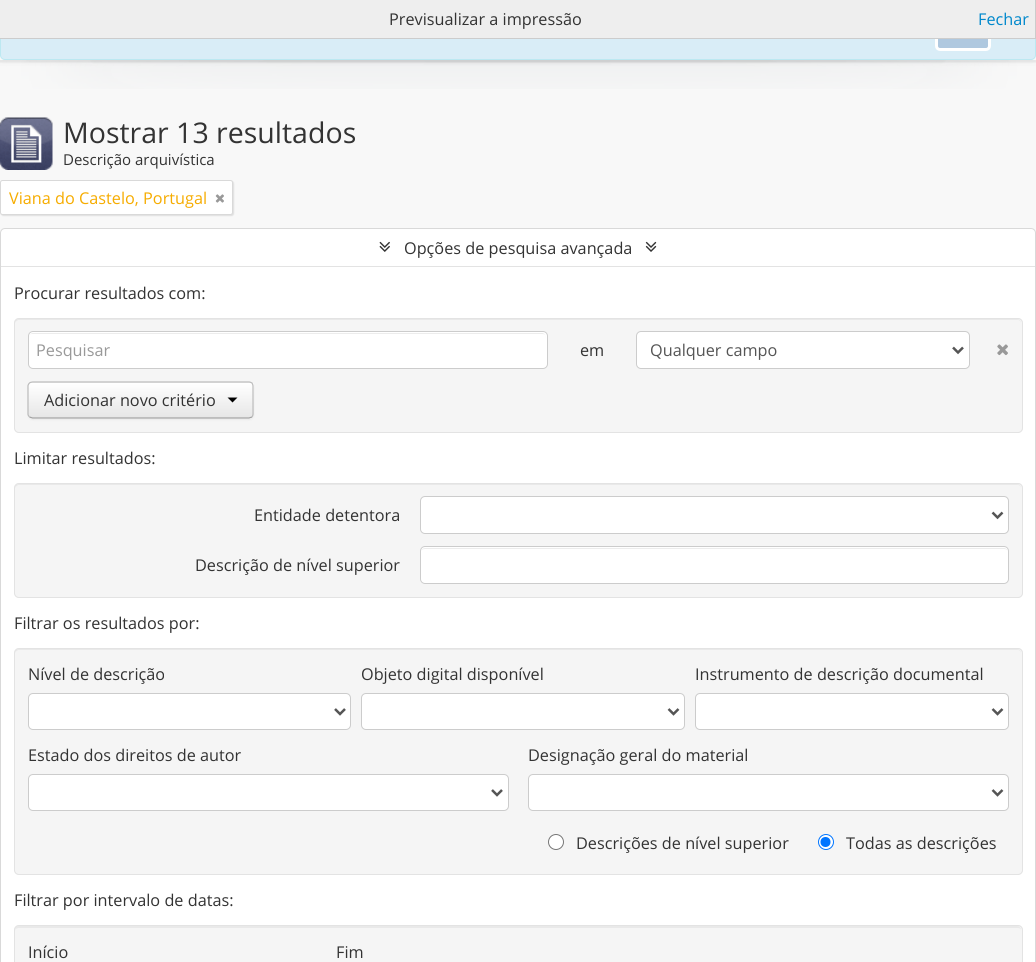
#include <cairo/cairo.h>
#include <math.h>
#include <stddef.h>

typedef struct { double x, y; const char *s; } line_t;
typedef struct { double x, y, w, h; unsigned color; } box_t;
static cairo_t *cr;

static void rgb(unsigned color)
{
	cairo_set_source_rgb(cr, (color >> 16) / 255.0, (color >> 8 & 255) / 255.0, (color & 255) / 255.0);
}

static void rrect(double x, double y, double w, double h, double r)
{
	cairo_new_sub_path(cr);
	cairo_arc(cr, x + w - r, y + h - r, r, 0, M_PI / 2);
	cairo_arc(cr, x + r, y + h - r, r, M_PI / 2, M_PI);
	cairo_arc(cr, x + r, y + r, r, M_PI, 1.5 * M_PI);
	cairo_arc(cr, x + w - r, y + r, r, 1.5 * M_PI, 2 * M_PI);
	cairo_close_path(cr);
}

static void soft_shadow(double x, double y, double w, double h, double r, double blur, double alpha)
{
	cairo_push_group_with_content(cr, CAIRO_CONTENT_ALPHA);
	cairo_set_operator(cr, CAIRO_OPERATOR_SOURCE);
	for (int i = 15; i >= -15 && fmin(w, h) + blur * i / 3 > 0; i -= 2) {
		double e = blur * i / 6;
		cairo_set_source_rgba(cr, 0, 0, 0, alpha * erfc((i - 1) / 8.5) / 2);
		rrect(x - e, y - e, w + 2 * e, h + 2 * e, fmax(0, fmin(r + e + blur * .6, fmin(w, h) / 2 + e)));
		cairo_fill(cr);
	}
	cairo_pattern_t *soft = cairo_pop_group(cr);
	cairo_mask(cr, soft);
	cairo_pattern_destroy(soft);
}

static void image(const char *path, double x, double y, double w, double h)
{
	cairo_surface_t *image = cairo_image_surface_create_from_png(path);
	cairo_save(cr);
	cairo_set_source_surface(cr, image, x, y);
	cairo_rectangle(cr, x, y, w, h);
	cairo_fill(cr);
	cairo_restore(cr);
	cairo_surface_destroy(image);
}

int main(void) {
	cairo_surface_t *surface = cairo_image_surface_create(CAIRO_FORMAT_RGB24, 1036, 962);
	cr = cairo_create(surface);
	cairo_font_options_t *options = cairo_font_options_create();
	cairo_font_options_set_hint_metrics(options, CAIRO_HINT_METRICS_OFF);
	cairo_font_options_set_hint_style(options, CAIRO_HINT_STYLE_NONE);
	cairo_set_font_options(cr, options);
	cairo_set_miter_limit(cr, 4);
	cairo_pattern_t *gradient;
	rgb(0xf8f8f8);
	cairo_paint(cr);
	rgb(0xd9edf7);
	rrect(0.5, 0.5, 1035, 59, 4.5);
	cairo_fill_preserve(cr);
	rgb(0xbce8f1);
	cairo_set_line_width(cr, 1);
	cairo_stroke(cr);
	rgb(0xafc8df);
	rrect(936.5, 12.5, 53, 37, 3.5);
	cairo_fill_preserve(cr);
	rgb(0xffffff);
	cairo_set_line_width(cr, 3);
	cairo_stroke(cr);
	image("img/1.png", 0, 60, 1036, 29);
	{
		static const box_t items[] = {
			{0, 0, 1035, 38, 0xeeeeee},
			{1035, 0, 1, 39, 0xcccccc},
			{0, 38, 1036, 1, 0xcccccc},
		};
		for (size_t i = 0; i < sizeof items / sizeof *items; i++) {
			rgb(items[i].color);
			cairo_rectangle(cr, items[i].x, items[i].y, items[i].w, items[i].h);
			cairo_fill(cr);
		}
	}
	image("img/2.png", 0, 117, 53, 53);
	rgb(0x000000);
	soft_shadow(1, 181, 233, 35, 2.5, 0.5, 0.1);
	rgb(0xffffff);
	rrect(0.5, 180.5, 232, 34, 2);
	cairo_fill_preserve(cr);
	rgb(0xd9d9d9);
	cairo_set_line_width(cr, 1);
	cairo_stroke(cr);
	image("img/3.png", 215, 194, 9, 9);
	rgb(0xffffff);
	rrect(0.5, 228.5, 1035, 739, 4.5);
	cairo_fill_preserve(cr);
	rgb(0xd9d9d9);
	cairo_stroke(cr);
	image("img/4.png", 379, 241, 11, 11);
	image("img/5.png", 645, 241, 12, 11);
	rgb(0xe3e3e3);
	cairo_rectangle(cr, 1, 266, 1034, 1);
	cairo_fill(cr);
	rgb(0xf5f5f5);
	rrect(14, 318, 1009, 115, 5);
	cairo_fill(cr);
	rgb(0xe9e9e9);
	cairo_new_path(cr);
	cairo_move_to(cr, 19, 320);
	cairo_line_to(cr, 1018, 320);
	cairo_curve_to(cr, 1020, 320, 1021, 322, 1021, 324);
	cairo_curve_to(cr, 1021, 321, 1020, 319, 1017, 319);
	cairo_line_to(cr, 19, 319);
	cairo_curve_to(cr, 16, 319, 15, 321, 15, 324);
	cairo_curve_to(cr, 15, 322, 17, 320, 19, 320);
	cairo_close_path(cr);
	cairo_fill(cr);
	rrect(14.5, 318.5, 1008, 114, 4.5);
	rgb(0xe3e3e3);
	cairo_stroke(cr);
	rgb(0xffffff);
	rrect(28, 331, 520, 38, 5);
	cairo_fill(cr);
	rgb(0xececec);
	cairo_new_path(cr);
	cairo_move_to(cr, 32, 334);
	cairo_line_to(cr, 542, 334);
	cairo_curve_to(cr, 545, 334, 546, 335, 546, 338);
	cairo_line_to(cr, 546, 337);
	cairo_curve_to(cr, 546, 335, 544, 333, 542, 333);
	cairo_line_to(cr, 33, 333);
	cairo_curve_to(cr, 31, 333, 29, 335, 29, 337);
	cairo_line_to(cr, 29, 338);
	cairo_curve_to(cr, 29, 335, 30, 334, 32, 334);
	cairo_close_path(cr);
	cairo_fill(cr);
	rrect(28.5, 331.5, 519, 37, 4.5);
	rgb(0xcccccc);
	cairo_stroke(cr);
	rgb(0xffffff);
	rrect(636.5, 331.5, 333, 37, 4.5);
	cairo_fill_preserve(cr);
	rgb(0xcccccc);
	cairo_stroke(cr);
	cairo_new_path(cr);
	cairo_move_to(cr, 953, 347.5);
	cairo_line_to(cr, 958, 352.5);
	cairo_line_to(cr, 963, 347.5);
	rgb(0x555555);
	cairo_set_line_width(cr, 2.5);
	cairo_stroke(cr);
	image("img/6.png", 997, 344, 11, 12);
	rgb(0x000000);
	soft_shadow(28, 383, 226, 37, 5, 1, 0.05);
	rgb(0xf5f5f5);
	rrect(28, 381, 226, 38, 5);
	cairo_fill(cr);
	cairo_save(cr);
	rrect(28, 381, 226, 38, 5);
	cairo_clip(cr);
	gradient = cairo_pattern_create_linear(141, 383, 141, 418);
	cairo_pattern_add_color_stop_rgba(gradient, 0, 1, 1, 1, 1);
	cairo_pattern_add_color_stop_rgba(gradient, 1, 0.902, 0.902, 0.902, 1);
	cairo_set_source(cr, gradient);
	cairo_pattern_destroy(gradient);
	cairo_rectangle(cr, 28, 383, 226, 35);
	cairo_fill(cr);
	cairo_restore(cr);
	cairo_set_source_rgba(cr, 1, 1, 1, 0.2);
	cairo_new_path(cr);
	cairo_move_to(cr, 32, 384);
	cairo_line_to(cr, 249, 384);
	cairo_curve_to(cr, 254, 384, 252, 394, 252, 397);
	cairo_line_to(cr, 252, 417);
	cairo_curve_to(cr, 252, 416, 253, 415, 253, 414);
	cairo_line_to(cr, 253, 387);
	cairo_curve_to(cr, 253, 385, 251, 383, 249, 383);
	cairo_line_to(cr, 33, 383);
	cairo_curve_to(cr, 31, 383, 29, 385, 29, 387);
	cairo_line_to(cr, 29, 388);
	cairo_curve_to(cr, 29, 385, 30, 384, 32, 384);
	cairo_close_path(cr);
	cairo_fill(cr);
	cairo_new_path(cr);
	cairo_move_to(cr, 252, 417);
	cairo_line_to(cr, 249, 418);
	cairo_line_to(cr, 68.5, 418);
	cairo_line_to(cr, 32.5, 418);
	cairo_line_to(cr, 29.5, 417);
	rgb(0xa2a2a2);
	cairo_set_line_width(cr, 1.2);
	cairo_stroke(cr);
	cairo_new_path(cr);
	cairo_move_to(cr, 29.5, 417);
	cairo_curve_to(cr, 28.5, 416, 28, 415, 28, 414);
	cairo_line_to(cr, 28, 386);
	cairo_curve_to(cr, 28, 385, 28.5, 384, 29.5, 383);
	cairo_curve_to(cr, 30, 382.5, 31.5, 382, 32.5, 382);
	cairo_line_to(cr, 249, 382);
	cairo_curve_to(cr, 250, 382, 251, 382.5, 252, 383);
	cairo_curve_to(cr, 252.5, 384, 253, 385, 253, 386);
	cairo_line_to(cr, 253, 414);
	cairo_curve_to(cr, 253, 415, 252.5, 416, 252, 417);
	rgb(0xbbbbbb);
	cairo_stroke(cr);
	rgb(0x000000);
	cairo_new_path(cr);
	cairo_move_to(cr, 227.5, 397.5);
	cairo_line_to(cr, 237.5, 397.5);
	cairo_line_to(cr, 232.5, 402.5);
	cairo_close_path(cr);
	cairo_fill(cr);
	rgb(0xf5f5f5);
	rrect(14, 483, 1009, 115, 5);
	cairo_fill(cr);
	rgb(0xe9e9e9);
	cairo_new_path(cr);
	cairo_move_to(cr, 19, 485);
	cairo_line_to(cr, 1018, 485);
	cairo_curve_to(cr, 1020, 485, 1021, 487, 1021, 489);
	cairo_curve_to(cr, 1021, 486, 1020, 484, 1017, 484);
	cairo_line_to(cr, 19, 484);
	cairo_curve_to(cr, 16, 484, 15, 486, 15, 489);
	cairo_curve_to(cr, 15, 487, 17, 485, 19, 485);
	cairo_close_path(cr);
	cairo_fill(cr);
	rrect(14.5, 483.5, 1008, 114, 4.5);
	rgb(0xe3e3e3);
	cairo_set_line_width(cr, 1);
	cairo_stroke(cr);
	rgb(0xffffff);
	rrect(420.5, 496.5, 588, 37, 4.5);
	cairo_fill_preserve(cr);
	rgb(0xcccccc);
	cairo_stroke(cr);
	cairo_new_path(cr);
	cairo_move_to(cr, 992.5, 512.5);
	cairo_line_to(cr, 997.5, 517.5);
	cairo_line_to(cr, 1002.5, 512.5);
	rgb(0x555555);
	cairo_set_line_width(cr, 2.5);
	cairo_stroke(cr);
	rgb(0xffffff);
	rrect(420, 546, 589, 38, 5);
	cairo_fill(cr);
	rgb(0xececec);
	cairo_new_path(cr);
	cairo_move_to(cr, 425, 549);
	cairo_line_to(cr, 1004, 549);
	cairo_curve_to(cr, 1006, 549, 1008, 550, 1008, 552);
	cairo_curve_to(cr, 1008, 550, 1006, 548, 1004, 548);
	cairo_line_to(cr, 425, 548);
	cairo_curve_to(cr, 423, 548, 421, 550, 421, 552);
	cairo_curve_to(cr, 421, 550, 423, 549, 425, 549);
	cairo_close_path(cr);
	cairo_fill(cr);
	rrect(420.5, 546.5, 588, 37, 4.5);
	rgb(0xcccccc);
	cairo_set_line_width(cr, 1);
	cairo_stroke(cr);
	rgb(0xf5f5f5);
	rrect(14, 648, 1009, 227, 5);
	cairo_fill(cr);
	rgb(0xe9e9e9);
	cairo_new_path(cr);
	cairo_move_to(cr, 19, 650);
	cairo_line_to(cr, 1018, 650);
	cairo_curve_to(cr, 1020, 650, 1021, 652, 1021, 654);
	cairo_curve_to(cr, 1021, 651, 1020, 649, 1017, 649);
	cairo_line_to(cr, 19, 649);
	cairo_curve_to(cr, 16, 649, 15, 651, 15, 654);
	cairo_curve_to(cr, 15, 652, 17, 650, 19, 650);
	cairo_close_path(cr);
	cairo_fill(cr);
	rrect(14.5, 648.5, 1008, 226, 4.5);
	rgb(0xe3e3e3);
	cairo_stroke(cr);
	rgb(0xffffff);
	rrect(28.5, 693.5, 322, 36, 4.5);
	cairo_fill_preserve(cr);
	rgb(0xcccccc);
	cairo_stroke(cr);
	cairo_new_path(cr);
	cairo_move_to(cr, 335, 709);
	cairo_line_to(cr, 340, 714);
	cairo_line_to(cr, 345, 709);
	rgb(0x555555);
	cairo_set_line_width(cr, 2.5);
	cairo_stroke(cr);
	rgb(0xffffff);
	rrect(361.5, 693.5, 323, 36, 4.5);
	cairo_fill_preserve(cr);
	rgb(0xcccccc);
	cairo_set_line_width(cr, 1);
	cairo_stroke(cr);
	cairo_new_path(cr);
	cairo_move_to(cr, 668.5, 709);
	cairo_line_to(cr, 673.5, 714);
	cairo_line_to(cr, 678.5, 709);
	rgb(0x555555);
	cairo_set_line_width(cr, 2.5);
	cairo_stroke(cr);
	rgb(0xffffff);
	rrect(695.5, 693.5, 313, 36, 4.5);
	cairo_fill_preserve(cr);
	rgb(0xcccccc);
	cairo_set_line_width(cr, 1);
	cairo_stroke(cr);
	cairo_new_path(cr);
	cairo_move_to(cr, 992.5, 709);
	cairo_line_to(cr, 997.5, 714);
	cairo_line_to(cr, 1002.5, 709);
	rgb(0x555555);
	cairo_set_line_width(cr, 2.5);
	cairo_stroke(cr);
	rgb(0xffffff);
	rrect(28.5, 774.5, 480, 36, 4.5);
	cairo_fill_preserve(cr);
	rgb(0xcccccc);
	cairo_set_line_width(cr, 1);
	cairo_stroke(cr);
	cairo_new_path(cr);
	cairo_move_to(cr, 492, 790);
	cairo_line_to(cr, 497, 795);
	cairo_line_to(cr, 502, 790);
	rgb(0x555555);
	cairo_set_line_width(cr, 2.5);
	cairo_stroke(cr);
	rgb(0xffffff);
	rrect(528.5, 774.5, 480, 36, 4.5);
	cairo_fill_preserve(cr);
	rgb(0xcccccc);
	cairo_set_line_width(cr, 1);
	cairo_stroke(cr);
	cairo_new_path(cr);
	cairo_move_to(cr, 992.5, 790);
	cairo_line_to(cr, 997.5, 795);
	cairo_line_to(cr, 1002.5, 790);
	rgb(0x555555);
	cairo_set_line_width(cr, 2.5);
	cairo_stroke(cr);
	rgb(0xffffff);
	cairo_arc(cr, 556, 842, 7.5, 0, 2 * M_PI);
	cairo_fill_preserve(cr);
	rgb(0x767676);
	cairo_set_line_width(cr, 1);
	cairo_stroke(cr);
	rgb(0xffffff);
	cairo_arc(cr, 826, 842, 7.5, 0, 2 * M_PI);
	cairo_fill_preserve(cr);
	rgb(0x0075ff);
	cairo_stroke(cr);
	cairo_arc(cr, 825.5, 842, 5, 0, 2 * M_PI);
	cairo_fill(cr);
	rgb(0xf5f5f5);
	rrect(14, 925, 1009, 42, 5);
	cairo_fill(cr);
	rgb(0xe9e9e9);
	cairo_new_path(cr);
	cairo_move_to(cr, 19, 928);
	cairo_line_to(cr, 1018, 928);
	cairo_curve_to(cr, 1020, 928, 1021, 929, 1021, 931);
	cairo_curve_to(cr, 1021, 928, 1020, 926, 1017, 926);
	cairo_line_to(cr, 19, 926);
	cairo_curve_to(cr, 16, 926, 15, 928, 15, 931);
	cairo_curve_to(cr, 15, 929, 17, 928, 19, 928);
	cairo_close_path(cr);
	cairo_fill(cr);
	rrect(14.5, 925.5, 1008, 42, 4.5);
	rgb(0xe3e3e3);
	cairo_stroke(cr);
	cairo_select_font_face(cr, "Open Sans", CAIRO_FONT_SLANT_NORMAL, CAIRO_FONT_WEIGHT_NORMAL);
	cairo_set_font_size(cr, 16.25);
	rgb(0x333333);
	cairo_move_to(cr, 389, 25);
	cairo_show_text(cr, "Previsualizar a impressão");
	rgb(0x0088cc);
	cairo_move_to(cr, 978, 25);
	cairo_show_text(cr, "Fechar");
	cairo_set_font_size(cr, 28.5);
	rgb(0x333333);
	cairo_move_to(cr, 63, 143);
	cairo_show_text(cr, "Mostrar 13 resultados");
	cairo_set_font_size(cr, 15);
	cairo_move_to(cr, 63, 165);
	cairo_show_text(cr, "Descrição arquivística");
	cairo_set_font_size(cr, 16.25);
	rgb(0xf6ac00);
	cairo_move_to(cr, 9, 204);
	cairo_show_text(cr, "Viana do Castelo, Portugal");
	rgb(0x333333);
	cairo_move_to(cr, 404, 254);
	cairo_show_text(cr, "Opções de pesquisa avançada");
	cairo_move_to(cr, 14, 299);
	cairo_show_text(cr, "Procurar resultados com:");
	rgb(0x999999);
	cairo_move_to(cr, 36, 356);
	cairo_show_text(cr, "Pesquisar");
	rgb(0x333333);
	cairo_move_to(cr, 580, 356);
	cairo_show_text(cr, "em");
	rgb(0x555555);
	cairo_move_to(cr, 650, 356);
	cairo_show_text(cr, "Qualquer campo");
	rgb(0x333333);
	{
		static const line_t items[] = {
			{44, 406, "Adicionar novo critério"},
			{14, 464, "Limitar resultados:"},
			{254, 521, "Entidade detentora"},
			{195, 571, "Descrição de nível superior"},
			{14, 629, "Filtrar os resultados por:"},
			{28, 680, "Nível de descrição"},
			{361, 680, "Objeto digital disponível"},
			{695, 680, "Instrumento de descrição documental"},
			{28, 761, "Estado dos direitos de autor"},
			{528, 761, "Designação geral do material"},
			{576, 849, "Descrições de nível superior"},
			{846, 849, "Todas as descrições"},
			{14, 906, "Filtrar por intervalo de datas:"},
			{28, 958, "Início"},
			{336, 958, "Fim"},
		};
		for (size_t i = 0; i < sizeof items / sizeof *items; i++) {
			cairo_move_to(cr, items[i].x, items[i].y);
			cairo_show_text(cr, items[i].s);
		}
	}
	cairo_surface_write_to_png(surface, "page.png");
	cairo_font_options_destroy(options);
	cairo_destroy(cr);
	cairo_surface_destroy(surface);
	return 0;
}
